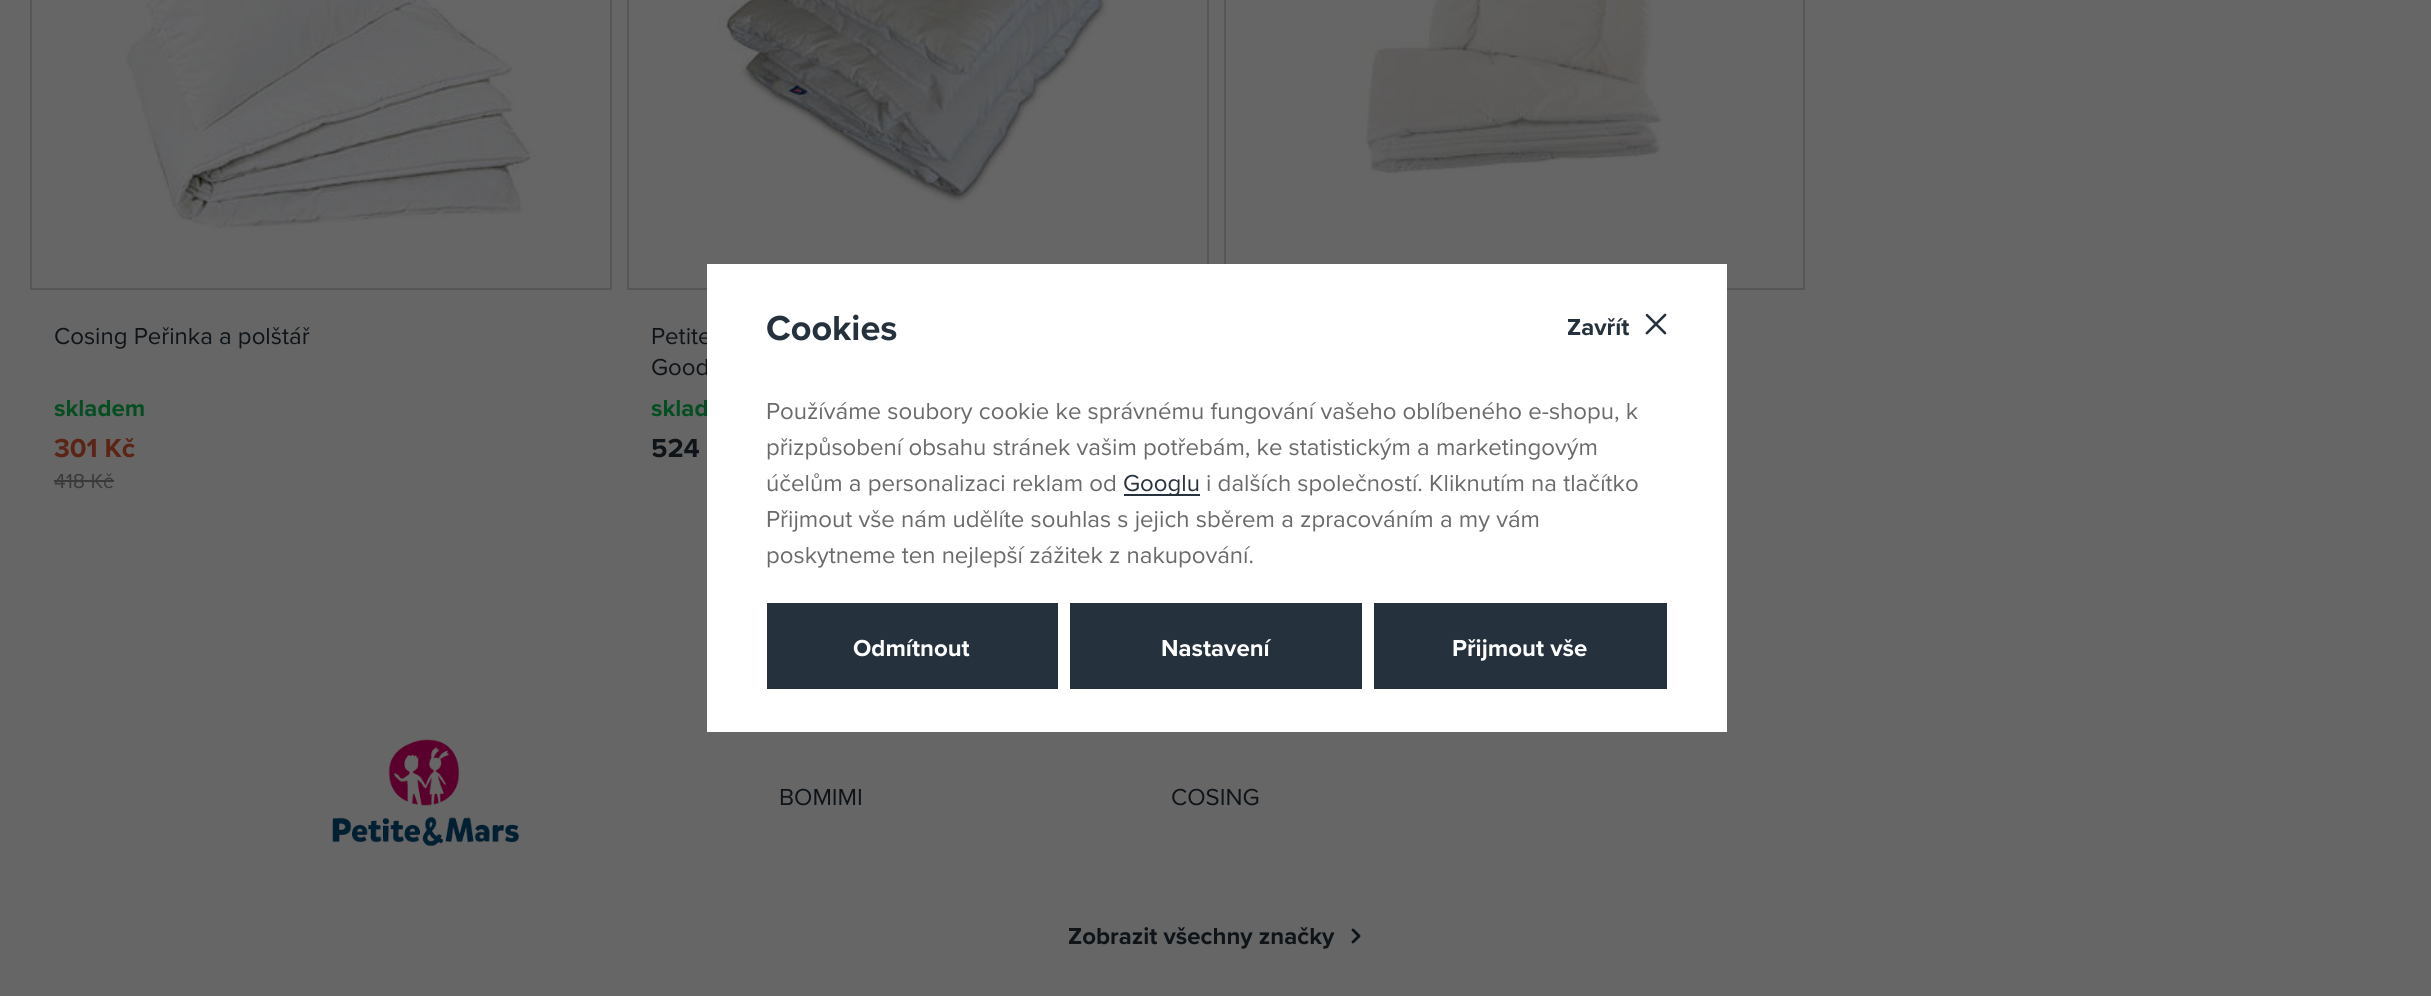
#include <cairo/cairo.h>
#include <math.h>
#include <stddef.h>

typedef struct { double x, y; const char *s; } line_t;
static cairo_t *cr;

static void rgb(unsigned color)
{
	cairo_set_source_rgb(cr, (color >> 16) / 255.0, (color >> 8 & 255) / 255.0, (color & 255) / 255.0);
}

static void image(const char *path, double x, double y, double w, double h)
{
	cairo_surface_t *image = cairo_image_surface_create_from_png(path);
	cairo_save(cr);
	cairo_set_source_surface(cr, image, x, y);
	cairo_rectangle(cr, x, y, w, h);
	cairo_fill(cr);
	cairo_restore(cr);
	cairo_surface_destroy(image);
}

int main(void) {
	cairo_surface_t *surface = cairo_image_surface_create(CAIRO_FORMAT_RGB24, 2431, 996);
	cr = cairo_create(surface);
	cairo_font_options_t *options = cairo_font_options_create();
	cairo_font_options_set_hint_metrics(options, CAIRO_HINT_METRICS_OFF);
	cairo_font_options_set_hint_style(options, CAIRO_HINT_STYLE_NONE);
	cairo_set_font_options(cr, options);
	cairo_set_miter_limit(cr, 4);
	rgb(0x666666);
	cairo_paint(cr);
	cairo_rectangle(cr, 1225, -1, 579, 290);
	rgb(0x565656);
	cairo_stroke(cr);
	image("img/1.png", 1361, 0, 302, 173);
	cairo_rectangle(cr, 31, -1, 580, 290);
	cairo_stroke(cr);
	image("img/2.png", 125, 0, 409, 232);
	rgb(0x3a3a3a);
	cairo_rectangle(cr, 54, 480, 60, 2);
	cairo_fill(cr);
	cairo_rectangle(cr, 628, -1, 580, 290);
	rgb(0x565656);
	cairo_stroke(cr);
	image("img/3.png", 718, 0, 390, 205);
	image("img/5.png", 332, 739, 187, 108);
	image("img/6.png", 1351, 928, 10, 16);
	cairo_select_font_face(cr, "Proxima Nova", CAIRO_FONT_SLANT_NORMAL, CAIRO_FONT_WEIGHT_NORMAL);
	cairo_set_font_size(cr, 24);
	rgb(0x0f1418);
	cairo_move_to(cr, 54, 344);
	cairo_show_text(cr, "Cosing Peřinka a polštář");
	cairo_select_font_face(cr, "Proxima Nova", CAIRO_FONT_SLANT_NORMAL, CAIRO_FONT_WEIGHT_BOLD);
	rgb(0x054e21);
	cairo_move_to(cr, 54, 416);
	cairo_show_text(cr, "skladem");
	cairo_set_font_size(cr, 27);
	rgb(0x5c2414);
	cairo_move_to(cr, 54, 457);
	cairo_show_text(cr, "301 Kč");
	cairo_select_font_face(cr, "Proxima Nova", CAIRO_FONT_SLANT_NORMAL, CAIRO_FONT_WEIGHT_NORMAL);
	cairo_set_font_size(cr, 21);
	rgb(0x3a3a3a);
	cairo_move_to(cr, 54, 488);
	cairo_show_text(cr, "418 Kč");
	cairo_set_font_size(cr, 24);
	rgb(0x0f1418);
	cairo_move_to(cr, 651, 344);
	cairo_show_text(cr, "Petite");
	cairo_move_to(cr, 651, 375);
	cairo_show_text(cr, "Good");
	cairo_select_font_face(cr, "Proxima Nova", CAIRO_FONT_SLANT_NORMAL, CAIRO_FONT_WEIGHT_BOLD);
	rgb(0x054e21);
	cairo_move_to(cr, 651, 416);
	cairo_show_text(cr, "sklad");
	cairo_set_font_size(cr, 27);
	rgb(0x0f1418);
	cairo_move_to(cr, 651, 457);
	cairo_show_text(cr, "524");
	rgb(0xffffff);
	cairo_rectangle(cr, 707, 264, 1020, 468);
	cairo_fill(cr);
	cairo_set_font_size(cr, 36);
	rgb(0x25313c);
	cairo_move_to(cr, 766, 340);
	cairo_show_text(cr, "Cookies");
	cairo_set_font_size(cr, 24);
	cairo_move_to(cr, 1567, 335);
	cairo_show_text(cr, "Zavřít");
	image("img/4.png", 1645, 313, 22, 22);
	cairo_select_font_face(cr, "Proxima Nova", CAIRO_FONT_SLANT_NORMAL, CAIRO_FONT_WEIGHT_NORMAL);
	rgb(0x6a6a6a);
	{
		static const line_t items[] = {
			{766, 419, "Používáme soubory cookie ke správnému fungování vašeho oblíbeného e-shopu, k"},
			{766, 455, "přizpůsobení obsahu stránek vašim potřebám, ke statistickým a marketingovým"},
			{766, 491, "účelům a personalizaci reklam od"},
		};
		for (size_t i = 0; i < sizeof items / sizeof *items; i++) {
			cairo_move_to(cr, items[i].x, items[i].y);
			cairo_show_text(cr, items[i].s);
		}
	}
	rgb(0x25313c);
	cairo_rectangle(cr, 1124, 494, 76, 2);
	cairo_fill(cr);
	cairo_move_to(cr, 1123, 491);
	cairo_show_text(cr, "Googlu");
	rgb(0x6a6a6a);
	{
		static const line_t items[] = {
			{1206, 491, "i dalších společností. Kliknutím na tlačítko"},
			{766, 527, "Přijmout vše nám udělíte souhlas s jejich sběrem a zpracováním a my vám"},
			{766, 563, "poskytneme ten nejlepší zážitek z nakupování."},
		};
		for (size_t i = 0; i < sizeof items / sizeof *items; i++) {
			cairo_move_to(cr, items[i].x, items[i].y);
			cairo_show_text(cr, items[i].s);
		}
	}
	rgb(0x25313c);
	cairo_rectangle(cr, 767, 603, 291, 86);
	cairo_fill(cr);
	cairo_select_font_face(cr, "Proxima Nova", CAIRO_FONT_SLANT_NORMAL, CAIRO_FONT_WEIGHT_BOLD);
	rgb(0xffffff);
	cairo_move_to(cr, 853, 656);
	cairo_show_text(cr, "Odmítnout");
	rgb(0x25313c);
	cairo_rectangle(cr, 1070, 603, 292, 86);
	cairo_fill(cr);
	rgb(0xffffff);
	cairo_move_to(cr, 1161, 656);
	cairo_show_text(cr, "Nastavení");
	rgb(0x25313c);
	cairo_rectangle(cr, 1374, 603, 293, 86);
	cairo_fill(cr);
	rgb(0xffffff);
	cairo_move_to(cr, 1452, 656);
	cairo_show_text(cr, "Přijmout vše");
	cairo_select_font_face(cr, "Proxima Nova", CAIRO_FONT_SLANT_NORMAL, CAIRO_FONT_WEIGHT_NORMAL);
	rgb(0x0f1418);
	cairo_move_to(cr, 779, 805);
	cairo_show_text(cr, "BOMIMI");
	cairo_move_to(cr, 1171, 805);
	cairo_show_text(cr, "COSING");
	cairo_select_font_face(cr, "Proxima Nova", CAIRO_FONT_SLANT_NORMAL, CAIRO_FONT_WEIGHT_BOLD);
	cairo_move_to(cr, 1068, 944);
	cairo_show_text(cr, "Zobrazit všechny značky");
	cairo_surface_write_to_png(surface, "page.png");
	cairo_font_options_destroy(options);
	cairo_destroy(cr);
	cairo_surface_destroy(surface);
	return 0;
}
